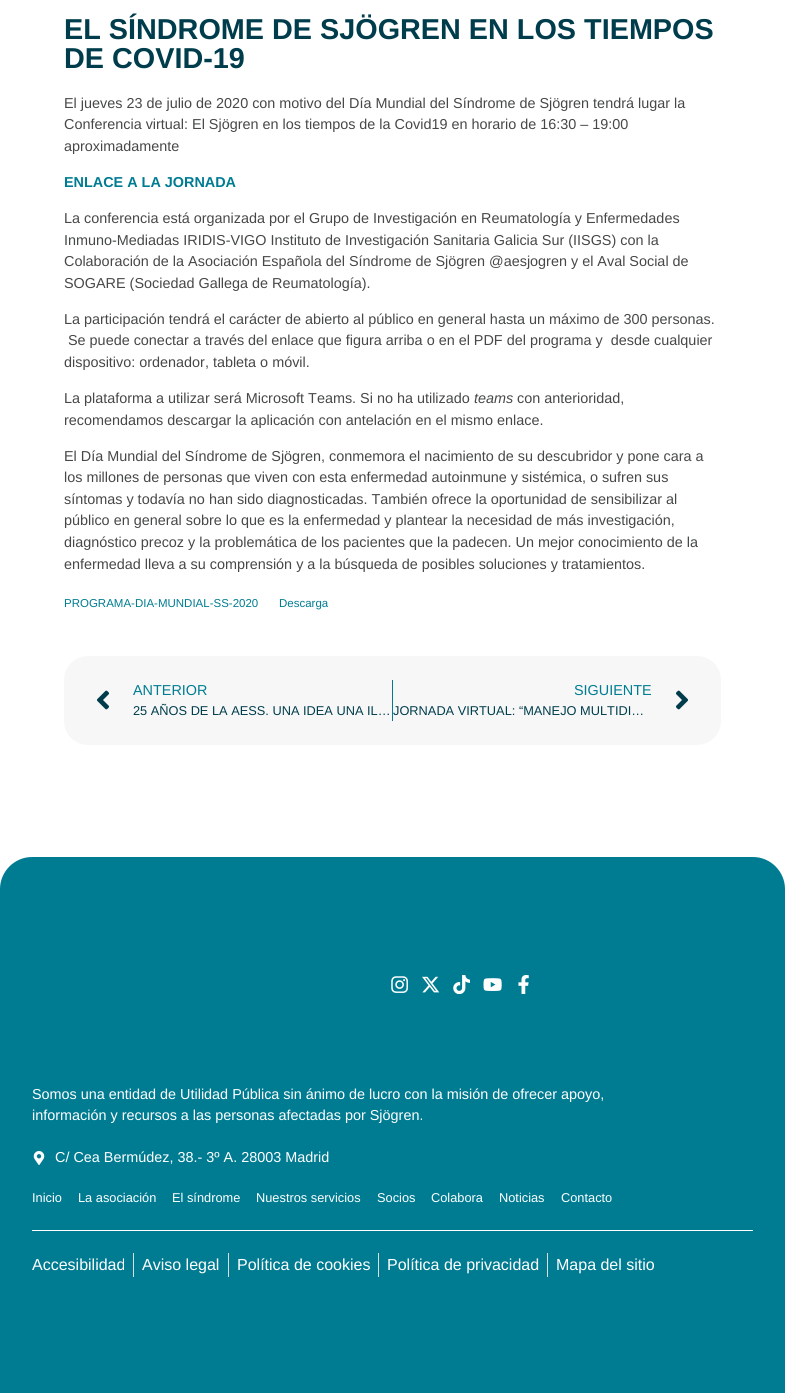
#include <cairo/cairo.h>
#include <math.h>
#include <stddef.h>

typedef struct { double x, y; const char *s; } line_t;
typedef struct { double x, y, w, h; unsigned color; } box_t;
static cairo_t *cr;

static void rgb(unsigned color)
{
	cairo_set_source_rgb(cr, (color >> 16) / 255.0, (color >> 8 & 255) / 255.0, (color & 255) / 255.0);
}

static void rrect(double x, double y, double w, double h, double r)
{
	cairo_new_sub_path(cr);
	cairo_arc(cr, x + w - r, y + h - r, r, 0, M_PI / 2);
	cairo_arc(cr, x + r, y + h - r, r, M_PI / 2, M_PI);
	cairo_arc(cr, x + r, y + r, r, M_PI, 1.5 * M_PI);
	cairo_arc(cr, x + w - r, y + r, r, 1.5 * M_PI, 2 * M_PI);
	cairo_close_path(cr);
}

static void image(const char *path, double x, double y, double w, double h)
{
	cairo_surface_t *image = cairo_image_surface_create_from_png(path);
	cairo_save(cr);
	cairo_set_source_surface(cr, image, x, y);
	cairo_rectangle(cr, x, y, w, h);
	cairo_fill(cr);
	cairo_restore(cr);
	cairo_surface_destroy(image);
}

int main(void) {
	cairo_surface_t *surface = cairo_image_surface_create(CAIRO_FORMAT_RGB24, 785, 1393);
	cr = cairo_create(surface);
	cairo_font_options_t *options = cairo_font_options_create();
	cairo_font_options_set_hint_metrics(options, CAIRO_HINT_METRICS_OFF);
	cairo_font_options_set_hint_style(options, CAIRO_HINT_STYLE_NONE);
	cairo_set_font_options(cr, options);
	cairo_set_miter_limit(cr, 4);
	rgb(0xffffff);
	cairo_paint(cr);
	rgb(0xf7f7f7);
	rrect(64, 656, 657, 89, 24);
	cairo_fill(cr);
	image("img/1.png", 97, 690, 12, 20);
	rgb(0x007c92);
	cairo_rectangle(cr, 392, 680, 1, 41);
	cairo_fill(cr);
	image("img/2.png", 676, 690, 12, 20);
	cairo_new_path(cr);
	cairo_move_to(cr, 32, 857);
	cairo_line_to(cr, 753, 857);
	cairo_curve_to(cr, 770.5, 857, 785, 871.5, 785, 889);
	cairo_line_to(cr, 785, 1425);
	cairo_line_to(cr, 0, 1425);
	cairo_line_to(cr, 0, 889);
	cairo_curve_to(cr, 0, 871.5, 14.5, 857, 32, 857);
	cairo_close_path(cr);
	cairo_fill(cr);
	image("img/3.png", 391, 976, 17, 17);
	image("img/4.png", 422, 976, 18, 17);
	image("img/5.png", 453, 975, 17, 19);
	image("img/6.png", 483, 978, 19, 13);
	image("img/7.png", 518, 975, 11, 19);
	image("img/8.png", 33, 1151, 12, 14);
	{
		static const box_t items[] = {
			{32, 1230, 721, 1, 0xffffff},
			{133, 1253, 1, 24, 0xdddddd},
			{228, 1253, 1, 24, 0xdddddd},
			{378, 1253, 1, 24, 0xdddddd},
			{547, 1253, 1, 24, 0xdddddd},
		};
		for (size_t i = 0; i < sizeof items / sizeof *items; i++) {
			rgb(items[i].color);
			cairo_rectangle(cr, items[i].x, items[i].y, items[i].w, items[i].h);
			cairo_fill(cr);
		}
	}
	cairo_select_font_face(cr, "Liberation Sans", CAIRO_FONT_SLANT_NORMAL, CAIRO_FONT_WEIGHT_BOLD);
	cairo_set_font_size(cr, 28.8);
	rgb(0x003d4c);
	cairo_move_to(cr, 64, 39);
	cairo_show_text(cr, "EL SÍNDROME DE SJÖGREN EN LOS TIEMPOS");
	cairo_move_to(cr, 64, 68);
	cairo_show_text(cr, "DE COVID-19");
	cairo_select_font_face(cr, "Liberation Sans", CAIRO_FONT_SLANT_NORMAL, CAIRO_FONT_WEIGHT_NORMAL);
	cairo_set_font_size(cr, 14.4);
	rgb(0x464848);
	{
		static const line_t items[] = {
			{64, 108, "El jueves 23 de julio de 2020 con motivo del Día Mundial del Síndrome de Sjögren tendrá lugar la"},
			{64, 129, "Conferencia virtual: El Sjögren en los tiempos de la Covid19 en horario de 16:30 – 19:00"},
			{64, 151, "aproximadamente"},
		};
		for (size_t i = 0; i < sizeof items / sizeof *items; i++) {
			cairo_move_to(cr, items[i].x, items[i].y);
			cairo_show_text(cr, items[i].s);
		}
	}
	cairo_select_font_face(cr, "Liberation Sans", CAIRO_FONT_SLANT_NORMAL, CAIRO_FONT_WEIGHT_BOLD);
	rgb(0x007c92);
	cairo_move_to(cr, 64, 187);
	cairo_show_text(cr, "ENLACE A LA JORNADA");
	cairo_select_font_face(cr, "Liberation Sans", CAIRO_FONT_SLANT_NORMAL, CAIRO_FONT_WEIGHT_NORMAL);
	rgb(0x464848);
	{
		static const line_t items[] = {
			{64, 223, "La conferencia está organizada por el Grupo de Investigación en Reumatología y Enfermedades"},
			{64, 245, "Inmuno-Mediadas IRIDIS-VIGO Instituto de Investigación Sanitaria Galicia Sur (IISGS) con la"},
			{64, 266, "Colaboración de la Asociación Española del Síndrome de Sjögren @aesjogren y el Aval Social de"},
			{64, 288, "SOGARE (Sociedad Gallega de Reumatología)."},
			{64, 324, "La participación tendrá el carácter de abierto al público en general hasta un máximo de 300 personas."},
			{68, 345, "Se puede conectar a través del enlace que figura arriba o en el PDF del programa y  desde cualquier"},
			{64, 367, "dispositivo: ordenador, tableta o móvil."},
			{64, 403, "La plataforma a utilizar será Microsoft Teams. Si no ha utilizado"},
		};
		for (size_t i = 0; i < sizeof items / sizeof *items; i++) {
			cairo_move_to(cr, items[i].x, items[i].y);
			cairo_show_text(cr, items[i].s);
		}
	}
	cairo_select_font_face(cr, "Liberation Sans", CAIRO_FONT_SLANT_ITALIC, CAIRO_FONT_WEIGHT_NORMAL);
	cairo_move_to(cr, 474, 403);
	cairo_show_text(cr, "teams");
	cairo_select_font_face(cr, "Liberation Sans", CAIRO_FONT_SLANT_NORMAL, CAIRO_FONT_WEIGHT_NORMAL);
	{
		static const line_t items[] = {
			{517, 403, "con anterioridad,"},
			{64, 425, "recomendamos descargar la aplicación con antelación en el mismo enlace."},
			{64, 461, "El Día Mundial del Síndrome de Sjögren, conmemora el nacimiento de su descubridor y pone cara a"},
			{64, 482, "los millones de personas que viven con esta enfermedad autoinmune y sistémica, o sufren sus"},
			{64, 504, "síntomas y todavía no han sido diagnosticadas. También ofrece la oportunidad de sensibilizar al"},
			{64, 525, "público en general sobre lo que es la enfermedad y plantear la necesidad de más investigación,"},
			{64, 547, "diagnóstico precoz y la problemática de los pacientes que la padecen. Un mejor conocimiento de la"},
			{64, 569, "enfermedad lleva a su comprensión y a la búsqueda de posibles soluciones y tratamientos."},
		};
		for (size_t i = 0; i < sizeof items / sizeof *items; i++) {
			cairo_move_to(cr, items[i].x, items[i].y);
			cairo_show_text(cr, items[i].s);
		}
	}
	cairo_set_font_size(cr, 11.5);
	rgb(0x007c92);
	cairo_move_to(cr, 64, 607);
	cairo_show_text(cr, "PROGRAMA-DIA-MUNDIAL-SS-2020");
	cairo_move_to(cr, 279, 607);
	cairo_show_text(cr, "Descarga");
	cairo_set_font_size(cr, 14.4);
	cairo_move_to(cr, 133, 695);
	cairo_show_text(cr, "ANTERIOR");
	cairo_set_font_size(cr, 12.8);
	rgb(0x003d4c);
	cairo_move_to(cr, 133, 715);
	cairo_show_text(cr, "25 AÑOS DE LA AESS. UNA IDEA UNA IL…");
	cairo_set_font_size(cr, 14.4);
	rgb(0x007c92);
	cairo_move_to(cr, 574, 695);
	cairo_show_text(cr, "SIGUIENTE");
	cairo_set_font_size(cr, 12.8);
	rgb(0x003d4c);
	cairo_move_to(cr, 393, 715);
	cairo_show_text(cr, "JORNADA VIRTUAL: “MANEJO MULTIDI…");
	cairo_set_font_size(cr, 14.4);
	rgb(0xffffff);
	{
		static const line_t items[] = {
			{32, 1099, "Somos una entidad de Utilidad Pública sin ánimo de lucro con la misión de ofrecer apoyo,"},
			{32, 1120, "información y recursos a las personas afectadas por Sjögren."},
			{55, 1162, "C/ Cea Bermúdez, 38.- 3º A. 28003 Madrid"},
		};
		for (size_t i = 0; i < sizeof items / sizeof *items; i++) {
			cairo_move_to(cr, items[i].x, items[i].y);
			cairo_show_text(cr, items[i].s);
		}
	}
	cairo_set_font_size(cr, 12.8);
	{
		static const line_t items[] = {
			{32, 1202, "Inicio"},
			{78, 1202, "La asociación"},
			{172, 1202, "El síndrome"},
			{256, 1202, "Nuestros servicios"},
			{377, 1202, "Socios"},
			{431, 1202, "Colabora"},
			{499, 1202, "Noticias"},
			{561, 1202, "Contacto"},
		};
		for (size_t i = 0; i < sizeof items / sizeof *items; i++) {
			cairo_move_to(cr, items[i].x, items[i].y);
			cairo_show_text(cr, items[i].s);
		}
	}
	cairo_set_font_size(cr, 16);
	{
		static const line_t items[] = {
			{32, 1270, "Accesibilidad"},
			{142, 1270, "Aviso legal"},
			{237, 1270, "Política de cookies"},
			{387, 1270, "Política de privacidad"},
			{556, 1270, "Mapa del sitio"},
		};
		for (size_t i = 0; i < sizeof items / sizeof *items; i++) {
			cairo_move_to(cr, items[i].x, items[i].y);
			cairo_show_text(cr, items[i].s);
		}
	}
	cairo_surface_write_to_png(surface, "page.png");
	cairo_font_options_destroy(options);
	cairo_destroy(cr);
	cairo_surface_destroy(surface);
	return 0;
}
